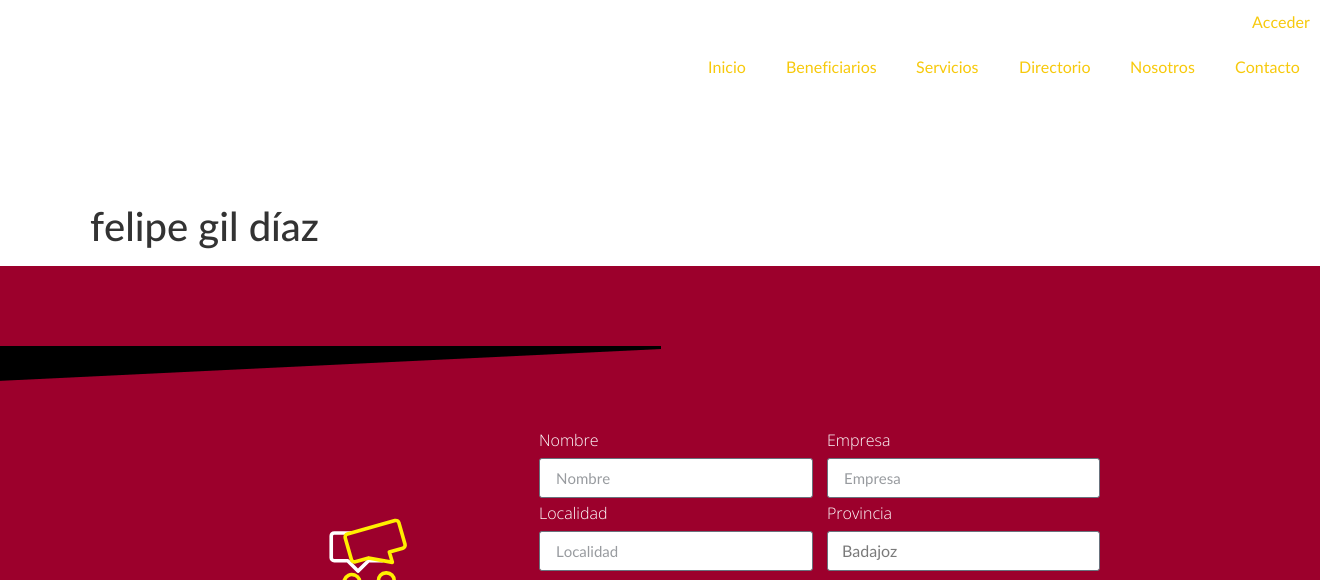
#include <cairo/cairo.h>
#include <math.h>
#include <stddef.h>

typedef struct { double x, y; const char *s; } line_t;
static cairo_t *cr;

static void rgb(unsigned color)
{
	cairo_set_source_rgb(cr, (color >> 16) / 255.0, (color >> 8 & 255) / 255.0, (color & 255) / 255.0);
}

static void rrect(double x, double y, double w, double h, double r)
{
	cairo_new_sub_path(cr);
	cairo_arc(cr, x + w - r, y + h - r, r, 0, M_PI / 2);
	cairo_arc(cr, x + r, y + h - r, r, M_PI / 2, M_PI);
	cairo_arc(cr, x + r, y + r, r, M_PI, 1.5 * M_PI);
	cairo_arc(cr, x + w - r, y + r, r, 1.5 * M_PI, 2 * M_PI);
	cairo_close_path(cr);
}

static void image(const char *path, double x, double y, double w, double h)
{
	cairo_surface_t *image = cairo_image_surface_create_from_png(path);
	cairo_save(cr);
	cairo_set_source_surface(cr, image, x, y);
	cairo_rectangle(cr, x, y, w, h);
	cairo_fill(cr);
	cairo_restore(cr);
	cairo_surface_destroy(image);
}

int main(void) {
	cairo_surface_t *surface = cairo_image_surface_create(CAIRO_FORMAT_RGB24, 1320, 580);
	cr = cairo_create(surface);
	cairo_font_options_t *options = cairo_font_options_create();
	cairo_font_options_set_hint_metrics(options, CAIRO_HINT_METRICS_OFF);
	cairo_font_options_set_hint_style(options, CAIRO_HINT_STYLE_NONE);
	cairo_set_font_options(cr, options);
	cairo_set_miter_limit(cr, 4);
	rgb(0xffffff);
	cairo_paint(cr);
	rgb(0x9c002c);
	cairo_rectangle(cr, 0, 266, 1320, 314);
	cairo_fill(cr);
	rgb(0x000000);
	cairo_new_path(cr);
	cairo_move_to(cr, -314, 396);
	cairo_line_to(cr, -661, 349);
	cairo_line_to(cr, -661, 346);
	cairo_line_to(cr, 661, 346);
	cairo_line_to(cr, 661, 349);
	cairo_close_path(cr);
	cairo_fill(cr);
	image("img/1.png", 329, 518, 78, 62);
	rgb(0xffffff);
	rrect(539.5, 458.5, 273, 39, 2.5);
	cairo_fill_preserve(cr);
	rgb(0x69727d);
	cairo_set_line_width(cr, 1);
	cairo_stroke(cr);
	rgb(0xffffff);
	rrect(827.5, 458.5, 272, 39, 2.5);
	cairo_fill_preserve(cr);
	rgb(0x69727d);
	cairo_stroke(cr);
	rgb(0xffffff);
	rrect(539.5, 531.5, 273, 39, 2.5);
	cairo_fill_preserve(cr);
	rgb(0x69727d);
	cairo_stroke(cr);
	rgb(0xffffff);
	rrect(827.5, 531.5, 272, 39, 2.5);
	cairo_fill_preserve(cr);
	rgb(0x69727d);
	cairo_stroke(cr);
	cairo_select_font_face(cr, "Lato", CAIRO_FONT_SLANT_NORMAL, CAIRO_FONT_WEIGHT_NORMAL);
	cairo_set_font_size(cr, 16);
	rgb(0xf7c90b);
	{
		static const line_t items[] = {
			{1252, 28, "Acceder"},
			{708, 73, "Inicio"},
			{786, 73, "Beneficiarios"},
			{916, 73, "Servicios"},
			{1019, 73, "Directorio"},
			{1130, 73, "Nosotros"},
			{1235, 73, "Contacto"},
		};
		for (size_t i = 0; i < sizeof items / sizeof *items; i++) {
			cairo_move_to(cr, items[i].x, items[i].y);
			cairo_show_text(cr, items[i].s);
		}
	}
	cairo_select_font_face(cr, "Lato Medium", CAIRO_FONT_SLANT_NORMAL, CAIRO_FONT_WEIGHT_NORMAL);
	cairo_set_font_size(cr, 40);
	rgb(0x333333);
	cairo_move_to(cr, 90, 241);
	cairo_show_text(cr, "felipe gil díaz");
	cairo_select_font_face(cr, "Open Sans Light", CAIRO_FONT_SLANT_NORMAL, CAIRO_FONT_WEIGHT_NORMAL);
	cairo_set_font_size(cr, 16);
	rgb(0xffffff);
	cairo_move_to(cr, 539, 446);
	cairo_show_text(cr, "Nombre");
	cairo_select_font_face(cr, "Lato", CAIRO_FONT_SLANT_NORMAL, CAIRO_FONT_WEIGHT_NORMAL);
	cairo_set_font_size(cr, 15);
	rgb(0x989b9f);
	cairo_move_to(cr, 556, 484);
	cairo_show_text(cr, "Nombre");
	cairo_select_font_face(cr, "Open Sans Light", CAIRO_FONT_SLANT_NORMAL, CAIRO_FONT_WEIGHT_NORMAL);
	cairo_set_font_size(cr, 16);
	rgb(0xffffff);
	cairo_move_to(cr, 827, 446);
	cairo_show_text(cr, "Empresa");
	cairo_select_font_face(cr, "Lato", CAIRO_FONT_SLANT_NORMAL, CAIRO_FONT_WEIGHT_NORMAL);
	cairo_set_font_size(cr, 15);
	rgb(0x989b9f);
	cairo_move_to(cr, 844, 484);
	cairo_show_text(cr, "Empresa");
	cairo_select_font_face(cr, "Open Sans Light", CAIRO_FONT_SLANT_NORMAL, CAIRO_FONT_WEIGHT_NORMAL);
	cairo_set_font_size(cr, 16);
	rgb(0xffffff);
	cairo_move_to(cr, 539, 519);
	cairo_show_text(cr, "Localidad");
	cairo_select_font_face(cr, "Lato", CAIRO_FONT_SLANT_NORMAL, CAIRO_FONT_WEIGHT_NORMAL);
	cairo_set_font_size(cr, 15);
	rgb(0x989b9f);
	cairo_move_to(cr, 556, 557);
	cairo_show_text(cr, "Localidad");
	cairo_select_font_face(cr, "Open Sans Light", CAIRO_FONT_SLANT_NORMAL, CAIRO_FONT_WEIGHT_NORMAL);
	cairo_set_font_size(cr, 16);
	rgb(0xffffff);
	cairo_move_to(cr, 827, 519);
	cairo_show_text(cr, "Provincia");
	cairo_select_font_face(cr, "Lato", CAIRO_FONT_SLANT_NORMAL, CAIRO_FONT_WEIGHT_NORMAL);
	rgb(0x7a7a7a);
	cairo_move_to(cr, 842, 557);
	cairo_show_text(cr, "Badajoz");
	cairo_surface_write_to_png(surface, "page.png");
	cairo_font_options_destroy(options);
	cairo_destroy(cr);
	cairo_surface_destroy(surface);
	return 0;
}
